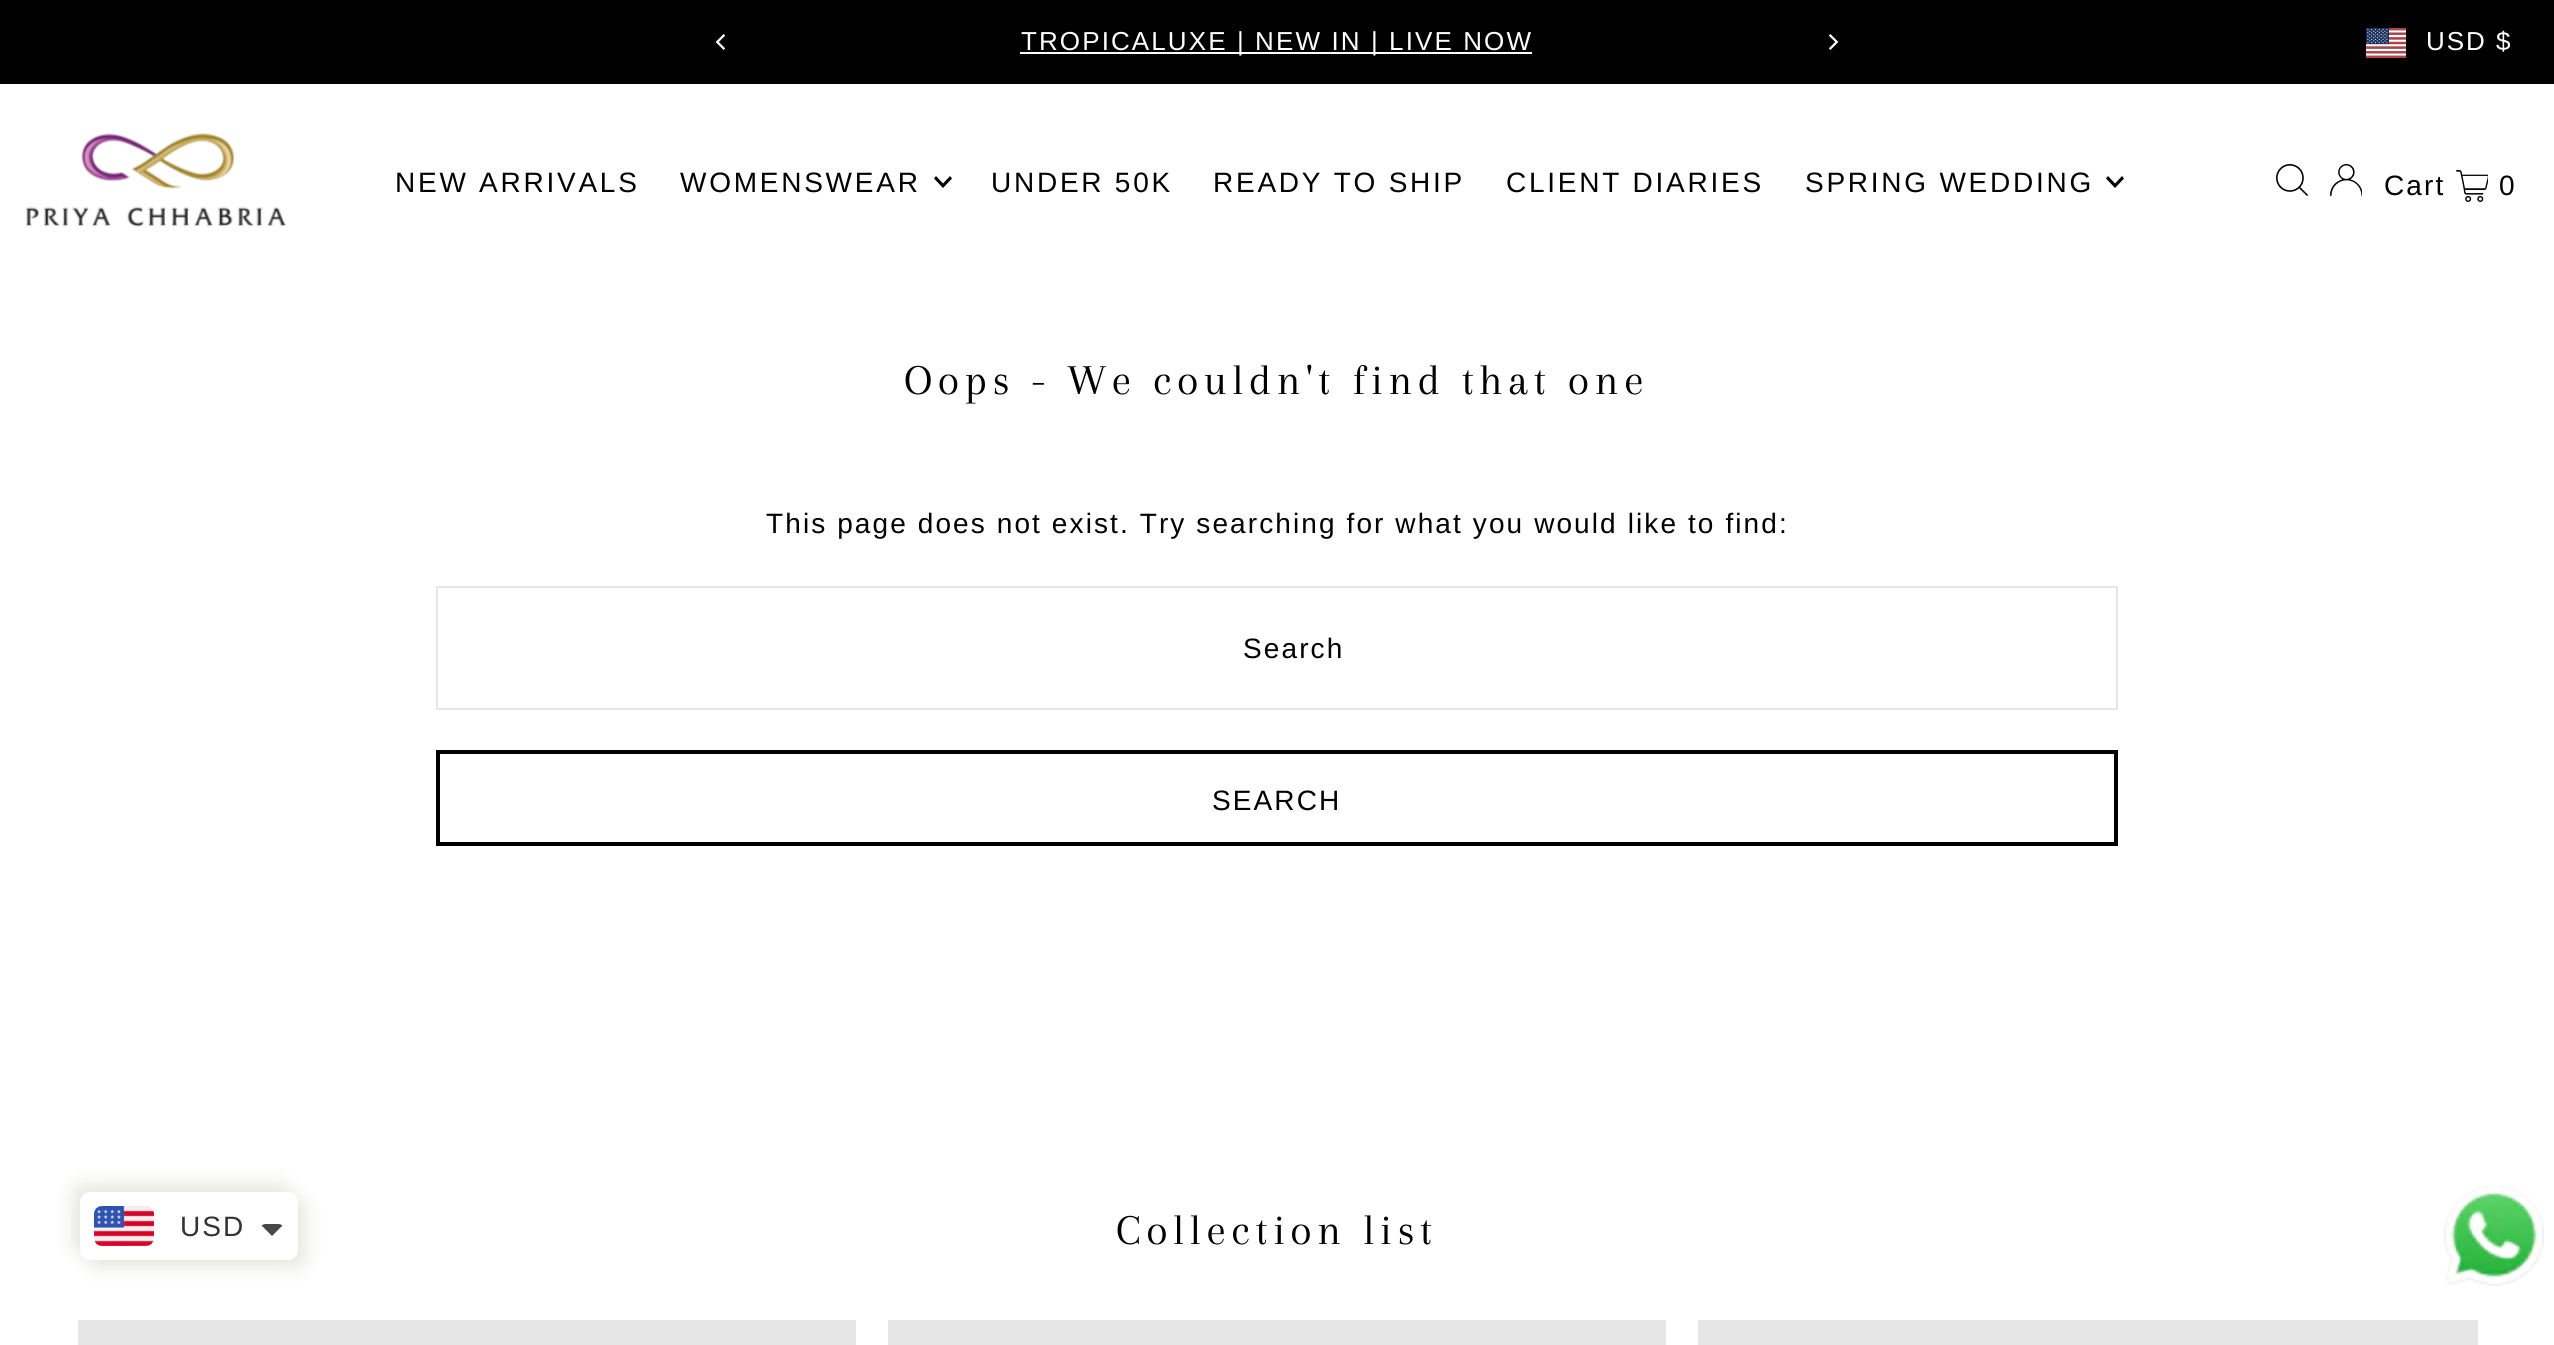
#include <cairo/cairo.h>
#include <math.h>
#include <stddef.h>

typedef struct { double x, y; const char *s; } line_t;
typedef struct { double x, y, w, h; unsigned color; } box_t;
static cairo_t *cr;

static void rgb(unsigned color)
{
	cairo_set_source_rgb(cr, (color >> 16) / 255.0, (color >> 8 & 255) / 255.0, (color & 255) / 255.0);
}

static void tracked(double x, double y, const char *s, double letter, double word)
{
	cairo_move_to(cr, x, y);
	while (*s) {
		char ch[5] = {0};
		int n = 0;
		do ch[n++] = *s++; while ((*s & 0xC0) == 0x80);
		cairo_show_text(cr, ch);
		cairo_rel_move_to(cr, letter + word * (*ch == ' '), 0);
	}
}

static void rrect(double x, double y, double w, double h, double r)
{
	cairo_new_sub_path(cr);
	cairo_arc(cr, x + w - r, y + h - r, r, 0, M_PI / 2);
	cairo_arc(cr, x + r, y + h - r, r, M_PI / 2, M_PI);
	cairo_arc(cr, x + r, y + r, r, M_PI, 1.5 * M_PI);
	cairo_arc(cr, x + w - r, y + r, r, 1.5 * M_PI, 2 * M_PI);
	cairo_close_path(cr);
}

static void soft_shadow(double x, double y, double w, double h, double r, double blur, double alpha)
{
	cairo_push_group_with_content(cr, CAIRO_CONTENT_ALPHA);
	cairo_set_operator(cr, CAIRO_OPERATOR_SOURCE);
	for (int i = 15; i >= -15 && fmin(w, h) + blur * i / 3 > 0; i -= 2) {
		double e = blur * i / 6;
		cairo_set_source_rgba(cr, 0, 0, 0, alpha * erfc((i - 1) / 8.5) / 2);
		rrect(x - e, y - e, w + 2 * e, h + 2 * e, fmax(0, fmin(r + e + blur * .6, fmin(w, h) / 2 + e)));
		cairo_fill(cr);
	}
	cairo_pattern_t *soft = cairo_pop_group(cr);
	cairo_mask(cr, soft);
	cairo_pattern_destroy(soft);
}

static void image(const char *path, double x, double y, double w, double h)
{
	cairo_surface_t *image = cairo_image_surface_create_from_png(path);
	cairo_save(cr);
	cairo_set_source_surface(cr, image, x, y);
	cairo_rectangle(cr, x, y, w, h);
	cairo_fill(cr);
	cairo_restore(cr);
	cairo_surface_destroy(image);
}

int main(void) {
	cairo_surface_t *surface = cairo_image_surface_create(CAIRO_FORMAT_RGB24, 2554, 1345);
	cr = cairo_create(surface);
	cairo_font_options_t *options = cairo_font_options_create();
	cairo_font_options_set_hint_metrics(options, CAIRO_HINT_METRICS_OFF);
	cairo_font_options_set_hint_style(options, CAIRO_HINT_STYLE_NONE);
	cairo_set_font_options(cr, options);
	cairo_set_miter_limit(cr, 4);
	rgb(0xffffff);
	cairo_paint(cr);
	rgb(0x000000);
	cairo_rectangle(cr, 0, 0, 2554, 84);
	cairo_fill(cr);
	image("img/1.png", 715, 34, 11, 16);
	rgb(0xffffff);
	cairo_rectangle(cr, 1020, 52, 512, 2);
	cairo_fill(cr);
	image("img/2.png", 1828, 34, 11, 16);
	image("img/3.png", 2366, 28, 40, 30);
	image("img/4.png", 25, 133, 261, 94);
	rgb(0x000000);
	cairo_new_path(cr);
	cairo_move_to(cr, 950, 176);
	cairo_line_to(cr, 943, 183.5);
	cairo_line_to(cr, 936, 176);
	cairo_line_to(cr, 934, 178.5);
	cairo_line_to(cr, 943, 188);
	cairo_line_to(cr, 952, 178.5);
	cairo_close_path(cr);
	cairo_fill(cr);
	cairo_new_path(cr);
	cairo_move_to(cr, 2122, 176);
	cairo_line_to(cr, 2115, 183.5);
	cairo_line_to(cr, 2108, 176);
	cairo_line_to(cr, 2106, 178.5);
	cairo_line_to(cr, 2115, 188);
	cairo_line_to(cr, 2124, 178.5);
	cairo_close_path(cr);
	cairo_fill(cr);
	image("img/5.png", 2276, 164, 32, 32);
	image("img/6.png", 2330, 164, 32, 32);
	image("img/7.png", 2456, 170, 32, 32);
	cairo_rectangle(cr, 437, 587, 1680, 122);
	rgb(0xe5e5e5);
	cairo_stroke(cr);
	cairo_rectangle(cr, 438, 752, 1678, 92);
	rgb(0x000000);
	cairo_set_line_width(cr, 4);
	cairo_stroke(cr);
	{
		static const box_t items[] = {
			{78, 1320, 778, 25, 0xe6e6e6},
			{888, 1320, 778, 25, 0xe6e6e6},
			{1698, 1320, 780, 25, 0xe6e6e6},
		};
		for (size_t i = 0; i < sizeof items / sizeof *items; i++) {
			rgb(items[i].color);
			cairo_rectangle(cr, items[i].x, items[i].y, items[i].w, items[i].h);
			cairo_fill(cr);
		}
	}
	rgb(0xe8e8e2);
	soft_shadow(72, 1184, 218, 68, 10, 9, 1);
	soft_shadow(88, 1200, 218, 68, 10, 9, 1);
	rgb(0xffffff);
	rrect(80, 1192, 218, 68, 10);
	cairo_fill(cr);
	image("img/8.png", 94, 1206, 60, 40);
	rgb(0x474942);
	cairo_new_path(cr);
	cairo_move_to(cr, 266, 1224);
	cairo_curve_to(cr, 264, 1224, 263, 1224.5, 261.5, 1225.5);
	cairo_line_to(cr, 272, 1236);
	cairo_line_to(cr, 282.5, 1225.5);
	cairo_curve_to(cr, 281, 1224.5, 280, 1224, 278, 1224);
	cairo_close_path(cr);
	cairo_fill(cr);
	image("img/9.png", 2444, 1186, 100, 100);
	cairo_select_font_face(cr, "Arimo", CAIRO_FONT_SLANT_NORMAL, CAIRO_FONT_WEIGHT_NORMAL);
	cairo_set_font_size(cr, 26);
	rgb(0xffffff);
	tracked(1021, 50, "TROPICALUXE | NEW IN | LIVE NOW", 2.1, 0);
	tracked(2426, 50, "USD $", 2, 0);
	cairo_set_font_size(cr, 28);
	rgb(0x000000);
	{
		static const line_t items[] = {
			{395, 192, "NEW ARRIVALS"},
			{680, 192, "WOMENSWEAR"},
			{991, 192, "UNDER 50K"},
			{1213, 192, "READY TO SHIP"},
			{1506, 192, "CLIENT DIARIES"},
			{1805, 192, "SPRING WEDDING"},
		};
		for (size_t i = 0; i < sizeof items / sizeof *items; i++) {
			tracked(items[i].x, items[i].y, items[i].s, 2.75, 0);
		}
	}
	tracked(2384, 195, "Cart", 2.1, 0);
	tracked(2499, 195, "0", 2.1, 0);
	cairo_select_font_face(cr, "Arapey", CAIRO_FONT_SLANT_NORMAL, CAIRO_FONT_WEIGHT_NORMAL);
	cairo_set_font_size(cr, 44);
	tracked(904, 394, "Oops - We couldn't find that one", 5.5, 0);
	cairo_select_font_face(cr, "Arimo", CAIRO_FONT_SLANT_NORMAL, CAIRO_FONT_WEIGHT_NORMAL);
	cairo_set_font_size(cr, 28);
	{
		static const line_t items[] = {
			{766, 533, "This page does not exist. Try searching for what you would like to find:"},
			{1243, 658, "Search"},
			{1212, 810, "SEARCH"},
		};
		for (size_t i = 0; i < sizeof items / sizeof *items; i++) {
			tracked(items[i].x, items[i].y, items[i].s, 2.1, 0);
		}
	}
	cairo_select_font_face(cr, "Arapey", CAIRO_FONT_SLANT_NORMAL, CAIRO_FONT_WEIGHT_NORMAL);
	cairo_set_font_size(cr, 44);
	tracked(1116, 1244, "Collection list", 5.5, 0);
	cairo_select_font_face(cr, "Arimo", CAIRO_FONT_SLANT_NORMAL, CAIRO_FONT_WEIGHT_NORMAL);
	cairo_set_font_size(cr, 28);
	rgb(0x333333);
	tracked(180, 1236, "USD", 2.1, 0);
	cairo_surface_write_to_png(surface, "page.png");
	cairo_font_options_destroy(options);
	cairo_destroy(cr);
	cairo_surface_destroy(surface);
	return 0;
}
